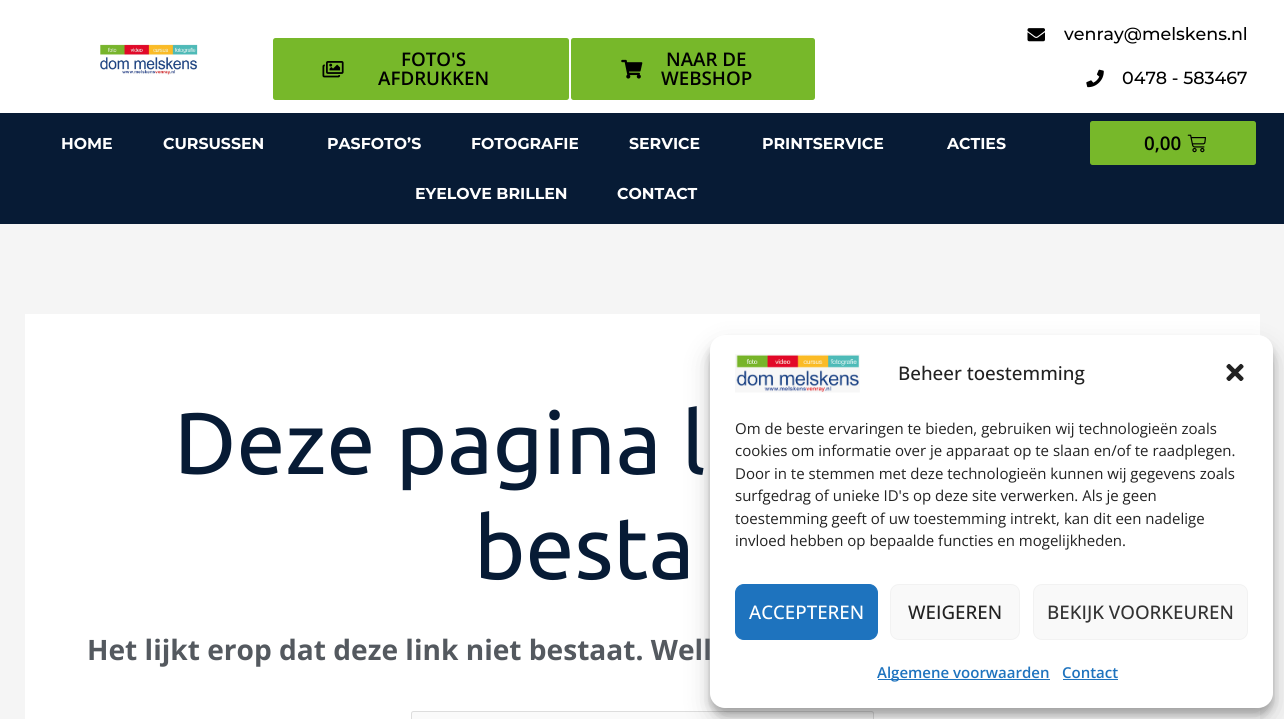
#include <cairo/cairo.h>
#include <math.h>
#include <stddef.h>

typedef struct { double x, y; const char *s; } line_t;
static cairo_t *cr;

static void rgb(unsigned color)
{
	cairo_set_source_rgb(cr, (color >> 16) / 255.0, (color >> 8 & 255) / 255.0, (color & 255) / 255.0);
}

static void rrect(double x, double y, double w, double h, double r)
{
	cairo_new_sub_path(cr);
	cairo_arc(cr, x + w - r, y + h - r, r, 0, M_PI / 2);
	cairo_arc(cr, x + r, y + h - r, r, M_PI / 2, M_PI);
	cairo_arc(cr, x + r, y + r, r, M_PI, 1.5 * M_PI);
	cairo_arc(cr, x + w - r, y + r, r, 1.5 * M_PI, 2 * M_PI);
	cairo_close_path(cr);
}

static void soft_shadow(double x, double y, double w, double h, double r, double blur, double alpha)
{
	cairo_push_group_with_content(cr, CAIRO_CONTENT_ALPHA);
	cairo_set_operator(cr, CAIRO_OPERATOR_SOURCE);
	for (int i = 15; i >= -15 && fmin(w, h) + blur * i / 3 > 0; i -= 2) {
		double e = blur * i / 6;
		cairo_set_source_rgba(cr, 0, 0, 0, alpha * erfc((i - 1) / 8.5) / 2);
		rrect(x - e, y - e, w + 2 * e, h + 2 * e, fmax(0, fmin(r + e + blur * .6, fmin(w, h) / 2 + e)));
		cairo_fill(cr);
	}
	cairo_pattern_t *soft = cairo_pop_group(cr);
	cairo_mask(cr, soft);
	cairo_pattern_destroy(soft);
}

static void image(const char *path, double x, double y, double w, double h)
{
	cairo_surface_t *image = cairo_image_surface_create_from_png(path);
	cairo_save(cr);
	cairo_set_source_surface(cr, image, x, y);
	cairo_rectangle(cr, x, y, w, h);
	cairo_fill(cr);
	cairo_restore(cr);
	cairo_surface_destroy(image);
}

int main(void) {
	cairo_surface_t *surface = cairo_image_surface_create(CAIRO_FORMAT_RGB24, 1284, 719);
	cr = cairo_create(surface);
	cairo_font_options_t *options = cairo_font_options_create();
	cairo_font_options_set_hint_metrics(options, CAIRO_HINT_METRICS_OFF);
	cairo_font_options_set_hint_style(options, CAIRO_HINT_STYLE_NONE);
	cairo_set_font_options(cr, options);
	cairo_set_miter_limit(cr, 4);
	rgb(0xf5f5f5);
	cairo_paint(cr);
	rgb(0xffffff);
	cairo_rectangle(cr, 0, 0, 1284, 113);
	cairo_fill(cr);
	image("img/1.png", 100, 44, 98, 31);
	rgb(0x77b82a);
	rrect(273, 38, 296, 62, 2.5);
	cairo_fill(cr);
	image("img/2.png", 322, 61, 22, 17);
	rrect(571, 38, 244, 62, 2.5);
	cairo_fill(cr);
	image("img/3.png", 621, 59, 22, 20);
	image("img/4.png", 1027, 28, 18, 14);
	image("img/5.png", 1086, 69, 18, 19);
	rgb(0x071b35);
	cairo_rectangle(cr, 0, 113, 1284, 111);
	cairo_fill(cr);
	rgb(0x77b82a);
	rrect(1090, 121, 166, 44, 2.5);
	cairo_fill(cr);
	image("img/6.png", 1187, 134, 19, 19);
	rgb(0xffffff);
	cairo_rectangle(cr, 25, 314, 1235, 405);
	cairo_fill(cr);
	rgb(0xfafafa);
	rrect(411.5, 711.5, 462, 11, 2);
	cairo_fill_preserve(cr);
	rgb(0xdddddd);
	cairo_set_line_width(cr, 1);
	cairo_stroke(cr);
	rgb(0x000000);
	soft_shadow(710, 343, 563, 372, 15, 4, 0.23);
	soft_shadow(710, 348, 563, 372, 15, 12.5, 0.19);
	cairo_select_font_face(cr, "Open Sans SemiBold", CAIRO_FONT_SLANT_NORMAL, CAIRO_FONT_WEIGHT_NORMAL);
	cairo_set_font_size(cr, 18.75);
	rgb(0x000000);
	{
		static const line_t items[] = {
			{401, 66, "FOTO'S"},
			{378, 85, "AFDRUKKEN"},
			{666, 66, "NAAR DE"},
			{661, 85, "WEBSHOP"},
		};
		for (size_t i = 0; i < sizeof items / sizeof *items; i++) {
			cairo_move_to(cr, items[i].x, items[i].y);
			cairo_show_text(cr, items[i].s);
		}
	}
	cairo_select_font_face(cr, "Montserrat Medium", CAIRO_FONT_SLANT_NORMAL, CAIRO_FONT_WEIGHT_NORMAL);
	cairo_set_font_size(cr, 17.5);
	cairo_move_to(cr, 1064, 40);
	cairo_show_text(cr, "venray@melskens.nl");
	cairo_move_to(cr, 1122, 84);
	cairo_show_text(cr, "0478 - 583467");
	cairo_select_font_face(cr, "Montserrat", CAIRO_FONT_SLANT_NORMAL, CAIRO_FONT_WEIGHT_BOLD);
	cairo_set_font_size(cr, 15.75);
	rgb(0xffffff);
	{
		static const line_t items[] = {
			{61, 149, "HOME"},
			{163, 149, "CURSUSSEN"},
			{327, 149, "PASFOTO’S"},
			{471, 149, "FOTOGRAFIE"},
			{629, 149, "SERVICE"},
			{762, 149, "PRINTSERVICE"},
			{947, 149, "ACTIES"},
			{415, 199, "EYELOVE BRILLEN"},
			{617, 199, "CONTACT"},
		};
		for (size_t i = 0; i < sizeof items / sizeof *items; i++) {
			cairo_move_to(cr, items[i].x, items[i].y);
			cairo_show_text(cr, items[i].s);
		}
	}
	cairo_select_font_face(cr, "Open Sans SemiBold", CAIRO_FONT_SLANT_NORMAL, CAIRO_FONT_WEIGHT_NORMAL);
	cairo_set_font_size(cr, 18.75);
	rgb(0x000000);
	cairo_move_to(cr, 1144, 150);
	cairo_show_text(cr, "0,00");
	cairo_select_font_face(cr, "Ubuntu", CAIRO_FONT_SLANT_NORMAL, CAIRO_FONT_WEIGHT_NORMAL);
	cairo_set_font_size(cr, 87.5);
	rgb(0x071b35);
	cairo_move_to(cr, 174, 474);
	cairo_show_text(cr, "Deze pagina l");
	cairo_move_to(cr, 474, 579);
	cairo_show_text(cr, "besta");
	cairo_select_font_face(cr, "Open Sans", CAIRO_FONT_SLANT_NORMAL, CAIRO_FONT_WEIGHT_BOLD);
	cairo_set_font_size(cr, 28.1);
	rgb(0x54595f);
	cairo_move_to(cr, 87, 660);
	cairo_show_text(cr, "Het lijkt erop dat deze link niet bestaat. Well");
	rgb(0xffffff);
	rrect(710, 335, 563, 373, 15);
	cairo_fill(cr);
	image("img/7.png", 735, 354, 125, 39);
	cairo_select_font_face(cr, "Open Sans Medium", CAIRO_FONT_SLANT_NORMAL, CAIRO_FONT_WEIGHT_NORMAL);
	cairo_set_font_size(cr, 18.75);
	rgb(0x222222);
	cairo_move_to(cr, 898, 380);
	cairo_show_text(cr, "Beheer toestemming");
	image("img/8.png", 1226, 363, 18, 18);
	cairo_select_font_face(cr, "Open Sans", CAIRO_FONT_SLANT_NORMAL, CAIRO_FONT_WEIGHT_NORMAL);
	cairo_set_font_size(cr, 15);
	{
		static const line_t items[] = {
			{735, 434, "Om de beste ervaringen te bieden, gebruiken wij technologieën zoals"},
			{735, 456, "cookies om informatie over je apparaat op te slaan en/of te raadplegen."},
			{735, 479, "Door in te stemmen met deze technologieën kunnen wij gegevens zoals"},
			{735, 501, "surfgedrag of unieke ID's op deze site verwerken. Als je geen"},
			{735, 524, "toestemming geeft of uw toestemming intrekt, kan dit een nadelige"},
			{735, 546, "invloed hebben op bepaalde functies en mogelijkheden."},
		};
		for (size_t i = 0; i < sizeof items / sizeof *items; i++) {
			cairo_move_to(cr, items[i].x, items[i].y);
			cairo_show_text(cr, items[i].s);
		}
	}
	rgb(0x1e73be);
	rrect(735.5, 584.5, 142, 55, 8.5);
	cairo_fill_preserve(cr);
	cairo_stroke(cr);
	cairo_select_font_face(cr, "Open Sans Medium", CAIRO_FONT_SLANT_NORMAL, CAIRO_FONT_WEIGHT_NORMAL);
	cairo_set_font_size(cr, 18.75);
	rgb(0xffffff);
	cairo_move_to(cr, 749, 619);
	cairo_show_text(cr, "ACCEPTEREN");
	rgb(0xf9f9f9);
	rrect(890.5, 584.5, 129, 55, 8.5);
	cairo_fill_preserve(cr);
	rgb(0xf2f2f2);
	cairo_stroke(cr);
	rgb(0x222222);
	cairo_move_to(cr, 908, 619);
	cairo_show_text(cr, "WEIGEREN");
	rgb(0xf9f9f9);
	rrect(1033.5, 584.5, 214, 55, 8.5);
	cairo_fill_preserve(cr);
	rgb(0xf2f2f2);
	cairo_stroke(cr);
	rgb(0x333333);
	cairo_move_to(cr, 1047, 619);
	cairo_show_text(cr, "BEKIJK VOORKEUREN");
	rgb(0x1e73be);
	cairo_rectangle(cr, 878, 679, 172, 1);
	cairo_fill(cr);
	cairo_select_font_face(cr, "Open Sans SemiBold", CAIRO_FONT_SLANT_NORMAL, CAIRO_FONT_WEIGHT_NORMAL);
	cairo_set_font_size(cr, 15);
	cairo_move_to(cr, 877, 678);
	cairo_show_text(cr, "Algemene voorwaarden");
	cairo_move_to(cr, 1062, 678);
	cairo_show_text(cr, "Contact");
	cairo_rectangle(cr, 1063, 679, 55, 1);
	cairo_fill(cr);
	cairo_surface_write_to_png(surface, "page.png");
	cairo_font_options_destroy(options);
	cairo_destroy(cr);
	cairo_surface_destroy(surface);
	return 0;
}
